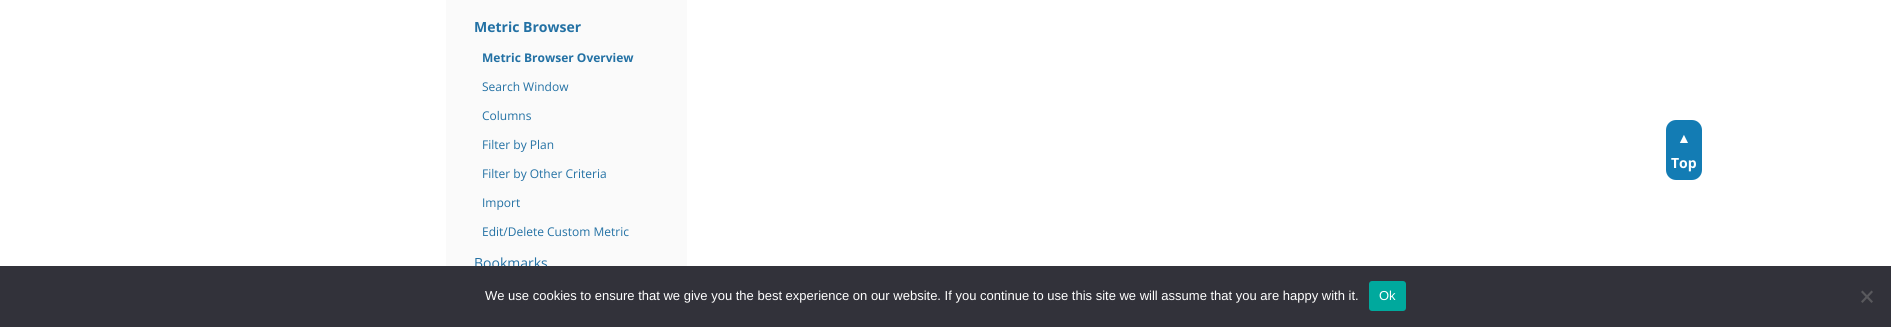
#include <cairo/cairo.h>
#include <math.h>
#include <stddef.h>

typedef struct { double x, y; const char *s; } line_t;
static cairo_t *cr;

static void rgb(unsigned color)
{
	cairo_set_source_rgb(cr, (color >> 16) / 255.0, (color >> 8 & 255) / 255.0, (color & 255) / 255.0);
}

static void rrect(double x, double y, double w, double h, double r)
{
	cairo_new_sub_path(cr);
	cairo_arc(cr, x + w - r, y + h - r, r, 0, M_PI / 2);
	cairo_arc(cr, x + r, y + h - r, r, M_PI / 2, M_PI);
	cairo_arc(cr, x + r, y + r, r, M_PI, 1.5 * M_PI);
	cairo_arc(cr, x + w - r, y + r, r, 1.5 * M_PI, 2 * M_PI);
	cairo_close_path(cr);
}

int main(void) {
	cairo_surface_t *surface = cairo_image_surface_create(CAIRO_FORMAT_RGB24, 1891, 327);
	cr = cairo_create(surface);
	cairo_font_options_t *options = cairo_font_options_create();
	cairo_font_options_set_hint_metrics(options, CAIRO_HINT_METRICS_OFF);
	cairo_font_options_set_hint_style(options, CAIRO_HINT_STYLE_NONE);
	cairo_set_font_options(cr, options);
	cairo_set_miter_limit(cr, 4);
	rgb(0xffffff);
	cairo_paint(cr);
	rgb(0xfafafa);
	cairo_rectangle(cr, 446, 0, 241, 266);
	cairo_fill(cr);
	rgb(0x137cb4);
	rrect(1666, 120, 36, 60, 10);
	cairo_fill(cr);
	cairo_select_font_face(cr, "Open Sans", CAIRO_FONT_SLANT_NORMAL, CAIRO_FONT_WEIGHT_BOLD);
	cairo_set_font_size(cr, 14);
	rgb(0x2371a4);
	cairo_move_to(cr, 474, 32);
	cairo_show_text(cr, "Metric Browser");
	cairo_set_font_size(cr, 12);
	cairo_move_to(cr, 482, 62);
	cairo_show_text(cr, "Metric Browser Overview");
	cairo_select_font_face(cr, "Open Sans", CAIRO_FONT_SLANT_NORMAL, CAIRO_FONT_WEIGHT_NORMAL);
	{
		static const line_t items[] = {
			{482, 91, "Search Window"},
			{482, 120, "Columns"},
			{482, 149, "Filter by Plan"},
			{482, 178, "Filter by Other Criteria"},
			{482, 207, "Import"},
			{482, 236, "Edit/Delete Custom Metric"},
		};
		for (size_t i = 0; i < sizeof items / sizeof *items; i++) {
			cairo_move_to(cr, items[i].x, items[i].y);
			cairo_show_text(cr, items[i].s);
		}
	}
	cairo_set_font_size(cr, 14);
	cairo_move_to(cr, 474, 268);
	cairo_show_text(cr, "Bookmarks");
	cairo_select_font_face(cr, "Liberation Sans", CAIRO_FONT_SLANT_NORMAL, CAIRO_FONT_WEIGHT_BOLD);
	rgb(0xffffff);
	cairo_move_to(cr, 1677, 143);
	cairo_show_text(cr, "▲");
	cairo_select_font_face(cr, "Open Sans", CAIRO_FONT_SLANT_NORMAL, CAIRO_FONT_WEIGHT_BOLD);
	cairo_move_to(cr, 1671, 168);
	cairo_show_text(cr, "Top");
	rgb(0x32323a);
	cairo_rectangle(cr, 0, 266, 1891, 61);
	cairo_fill(cr);
	cairo_select_font_face(cr, "Liberation Sans", CAIRO_FONT_SLANT_NORMAL, CAIRO_FONT_WEIGHT_NORMAL);
	cairo_set_font_size(cr, 13);
	rgb(0xffffff);
	cairo_move_to(cr, 485, 300);
	cairo_show_text(cr, "We use cookies to ensure that we give you the best experience on our website. If you continue to use this site we will assume that you are happy with it.");
	rgb(0x00a99d);
	rrect(1369, 281, 37, 30, 3);
	cairo_fill(cr);
	rgb(0xffffff);
	cairo_move_to(cr, 1379, 300);
	cairo_show_text(cr, "Ok");
	rgb(0x59595d);
	cairo_new_path(cr);
	cairo_move_to(cr, 1871.5, 290.5);
	cairo_line_to(cr, 1873, 292);
	cairo_line_to(cr, 1862.5, 303);
	cairo_line_to(cr, 1861, 301.5);
	cairo_close_path(cr);
	cairo_fill(cr);
	cairo_new_path(cr);
	cairo_move_to(cr, 1861, 292);
	cairo_line_to(cr, 1862.5, 290.5);
	cairo_line_to(cr, 1873, 301.5);
	cairo_line_to(cr, 1871.5, 303);
	cairo_close_path(cr);
	cairo_fill(cr);
	cairo_surface_write_to_png(surface, "page.png");
	cairo_font_options_destroy(options);
	cairo_destroy(cr);
	cairo_surface_destroy(surface);
	return 0;
}
